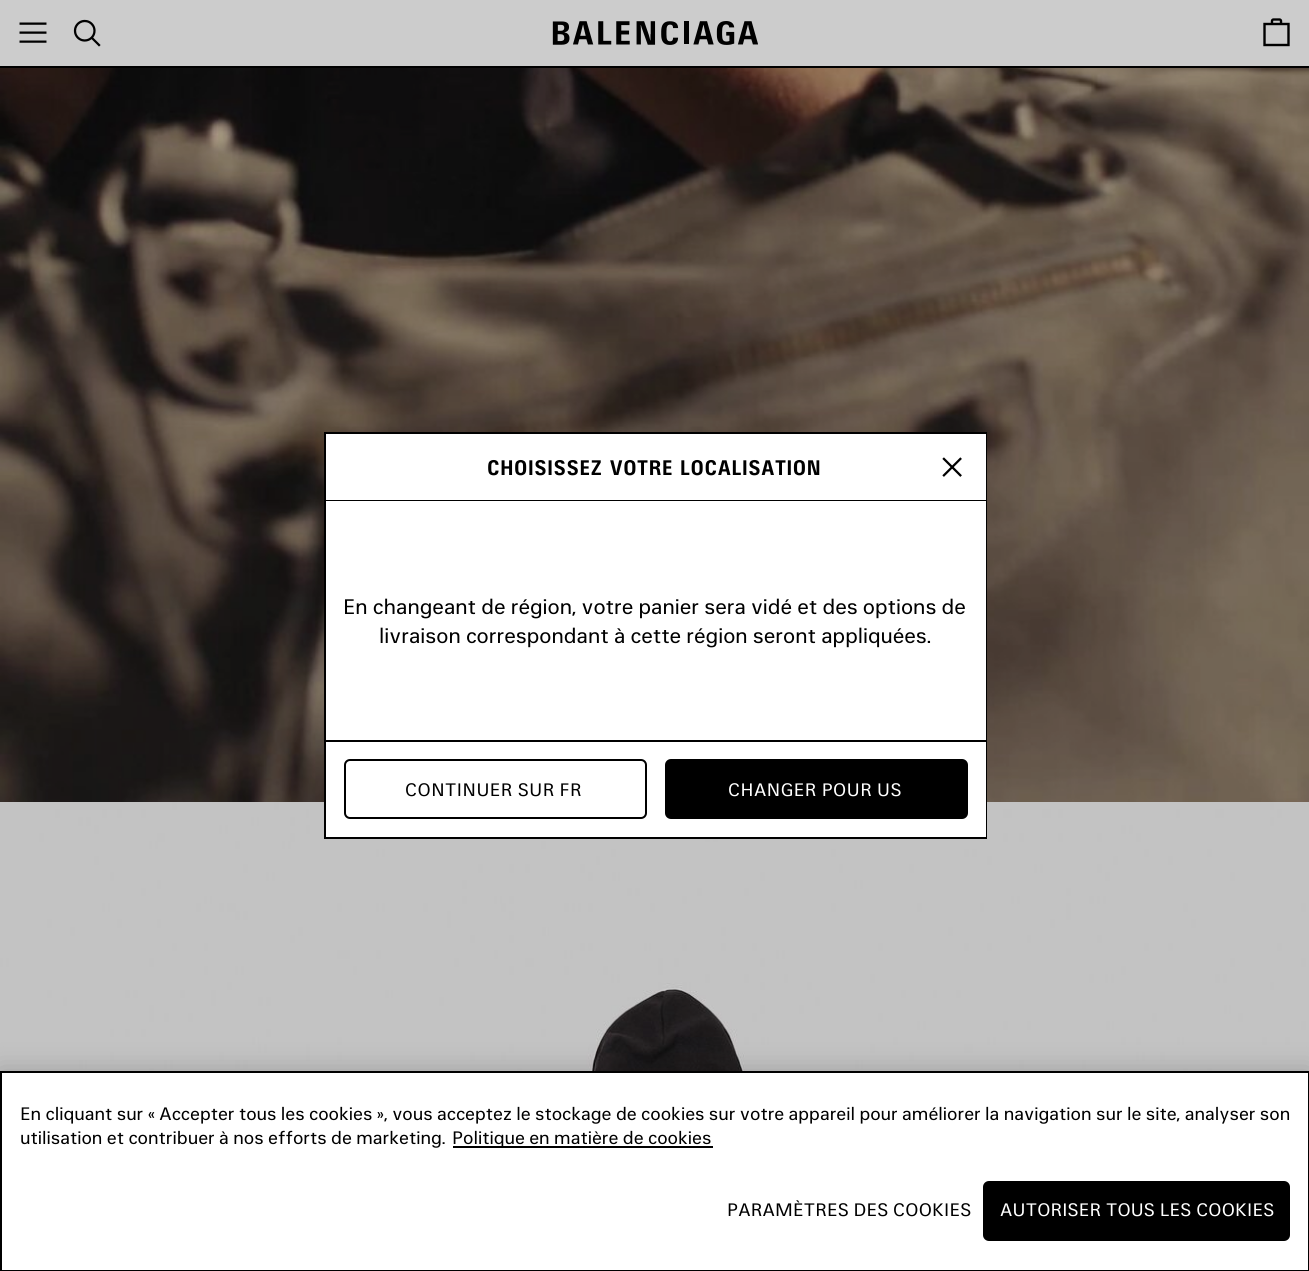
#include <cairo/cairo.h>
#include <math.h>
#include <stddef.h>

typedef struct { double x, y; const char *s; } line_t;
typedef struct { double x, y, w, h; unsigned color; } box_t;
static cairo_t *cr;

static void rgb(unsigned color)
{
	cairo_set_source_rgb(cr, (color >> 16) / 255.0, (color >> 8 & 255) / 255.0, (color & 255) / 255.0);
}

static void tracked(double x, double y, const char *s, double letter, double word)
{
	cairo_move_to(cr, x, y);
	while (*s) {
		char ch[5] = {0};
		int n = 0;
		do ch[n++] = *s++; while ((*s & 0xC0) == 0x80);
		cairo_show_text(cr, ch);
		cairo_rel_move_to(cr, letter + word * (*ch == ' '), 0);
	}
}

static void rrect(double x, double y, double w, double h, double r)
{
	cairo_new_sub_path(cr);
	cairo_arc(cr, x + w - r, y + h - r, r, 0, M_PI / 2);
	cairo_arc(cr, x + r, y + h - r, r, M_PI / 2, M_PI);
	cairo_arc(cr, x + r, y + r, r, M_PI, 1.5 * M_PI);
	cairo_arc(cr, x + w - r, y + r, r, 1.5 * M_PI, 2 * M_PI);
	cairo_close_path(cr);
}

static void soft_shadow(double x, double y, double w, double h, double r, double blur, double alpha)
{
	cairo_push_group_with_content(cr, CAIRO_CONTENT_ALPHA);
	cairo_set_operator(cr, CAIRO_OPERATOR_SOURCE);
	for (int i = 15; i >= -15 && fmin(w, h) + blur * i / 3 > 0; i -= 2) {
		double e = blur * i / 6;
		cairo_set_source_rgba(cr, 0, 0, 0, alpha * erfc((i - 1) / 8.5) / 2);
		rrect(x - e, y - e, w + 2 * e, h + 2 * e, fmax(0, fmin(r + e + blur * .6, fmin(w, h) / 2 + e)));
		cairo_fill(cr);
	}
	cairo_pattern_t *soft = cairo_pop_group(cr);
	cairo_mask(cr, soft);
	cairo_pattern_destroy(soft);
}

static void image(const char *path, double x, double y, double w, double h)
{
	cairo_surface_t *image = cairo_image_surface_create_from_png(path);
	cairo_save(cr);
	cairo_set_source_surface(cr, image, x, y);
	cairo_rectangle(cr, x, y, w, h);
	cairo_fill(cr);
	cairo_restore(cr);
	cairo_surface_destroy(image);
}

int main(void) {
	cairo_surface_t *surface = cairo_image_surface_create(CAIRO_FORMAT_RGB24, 1309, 1271);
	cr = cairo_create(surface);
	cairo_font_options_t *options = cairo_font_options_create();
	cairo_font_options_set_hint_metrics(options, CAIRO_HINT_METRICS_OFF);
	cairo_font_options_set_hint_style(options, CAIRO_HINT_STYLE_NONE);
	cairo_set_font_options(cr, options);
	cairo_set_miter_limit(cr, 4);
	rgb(0xffffff);
	cairo_paint(cr);
	rgb(0xcccccc);
	cairo_rectangle(cr, 0, 0, 1309, 66);
	cairo_fill(cr);
	rgb(0x000000);
	cairo_rectangle(cr, 0, 66, 1309, 2);
	cairo_fill(cr);
	image("img/1.png", 73, 19, 28, 28);
	image("img/2.png", 1263, 18, 27, 29);
	image("img/3.png", 19, 22, 28, 21);
	image("img/4.png", 552, 21, 206, 24);
	image("img/5.png", 0, 68, 1309, 734);
	image("img/6.png", 0, 802, 1309, 269);
	cairo_rectangle(cr, 325, 433, 661, 405);
	cairo_stroke(cr);
	rgb(0xffffff);
	cairo_rectangle(cr, 326, 434, 660, 66);
	cairo_fill(cr);
	rgb(0x000000);
	cairo_rectangle(cr, 326, 500, 660, 1);
	cairo_fill(cr);
	image("img/7.png", 942, 457, 20, 20);
	{
		static const box_t items[] = {
			{326, 501, 660, 239, 0xffffff},
			{326, 742, 660, 95, 0xffffff},
			{326, 740, 660, 2, 0x000000},
		};
		for (size_t i = 0; i < sizeof items / sizeof *items; i++) {
			rgb(items[i].color);
			cairo_rectangle(cr, items[i].x, items[i].y, items[i].w, items[i].h);
			cairo_fill(cr);
		}
	}
	rrect(345, 760, 301, 58, 5);
	cairo_stroke(cr);
	rrect(666, 760, 301, 58, 5);
	cairo_fill_preserve(cr);
	cairo_stroke(cr);
	rgb(0x000000);
	soft_shadow(0, 1071, 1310, 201, 0, 13.5, 0.2);
	rgb(0xffffff);
	cairo_rectangle(cr, 1, 1072, 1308, 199);
	cairo_fill_preserve(cr);
	rgb(0x000000);
	cairo_stroke(cr);
	cairo_rectangle(cr, 453, 1146, 260, 2);
	cairo_fill(cr);
	rrect(984, 1182, 305, 58, 5);
	cairo_fill_preserve(cr);
	cairo_stroke(cr);
	cairo_select_font_face(cr, "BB", CAIRO_FONT_SLANT_NORMAL, CAIRO_FONT_WEIGHT_BOLD);
	cairo_set_font_size(cr, 21);
	tracked(487, 475, "CHOISISSEZ VOTRE LOCALISATION", 0.6, 0);
	cairo_select_font_face(cr, "BB", CAIRO_FONT_SLANT_NORMAL, CAIRO_FONT_WEIGHT_NORMAL);
	cairo_move_to(cr, 343, 614);
	cairo_show_text(cr, "En changeant de région, votre panier sera vidé et des options de");
	cairo_move_to(cr, 379, 643);
	cairo_show_text(cr, "livraison correspondant à cette région seront appliquées.");
	cairo_set_font_size(cr, 18);
	tracked(405, 796, "CONTINUER SUR FR", 0.5, 0);
	rgb(0xffffff);
	tracked(728, 796, "CHANGER POUR US", 0.5, 0);
	rgb(0x000000);
	{
		static const line_t items[] = {
			{20, 1120, "En cliquant sur « Accepter tous les cookies », vous acceptez le stockage de cookies sur votre appareil pour améliorer la navigation sur le site, analyser son"},
			{20, 1144, "utilisation et contribuer à nos efforts de marketing."},
			{452, 1144, "Politique en matière de cookies"},
		};
		for (size_t i = 0; i < sizeof items / sizeof *items; i++) {
			cairo_move_to(cr, items[i].x, items[i].y);
			cairo_show_text(cr, items[i].s);
		}
	}
	tracked(727, 1216, "PARAMÈTRES DES COOKIES", 0.2, 0);
	rgb(0xffffff);
	tracked(1000, 1216, "AUTORISER TOUS LES COOKIES", 0.2, 0);
	cairo_surface_write_to_png(surface, "page.png");
	cairo_font_options_destroy(options);
	cairo_destroy(cr);
	cairo_surface_destroy(surface);
	return 0;
}
